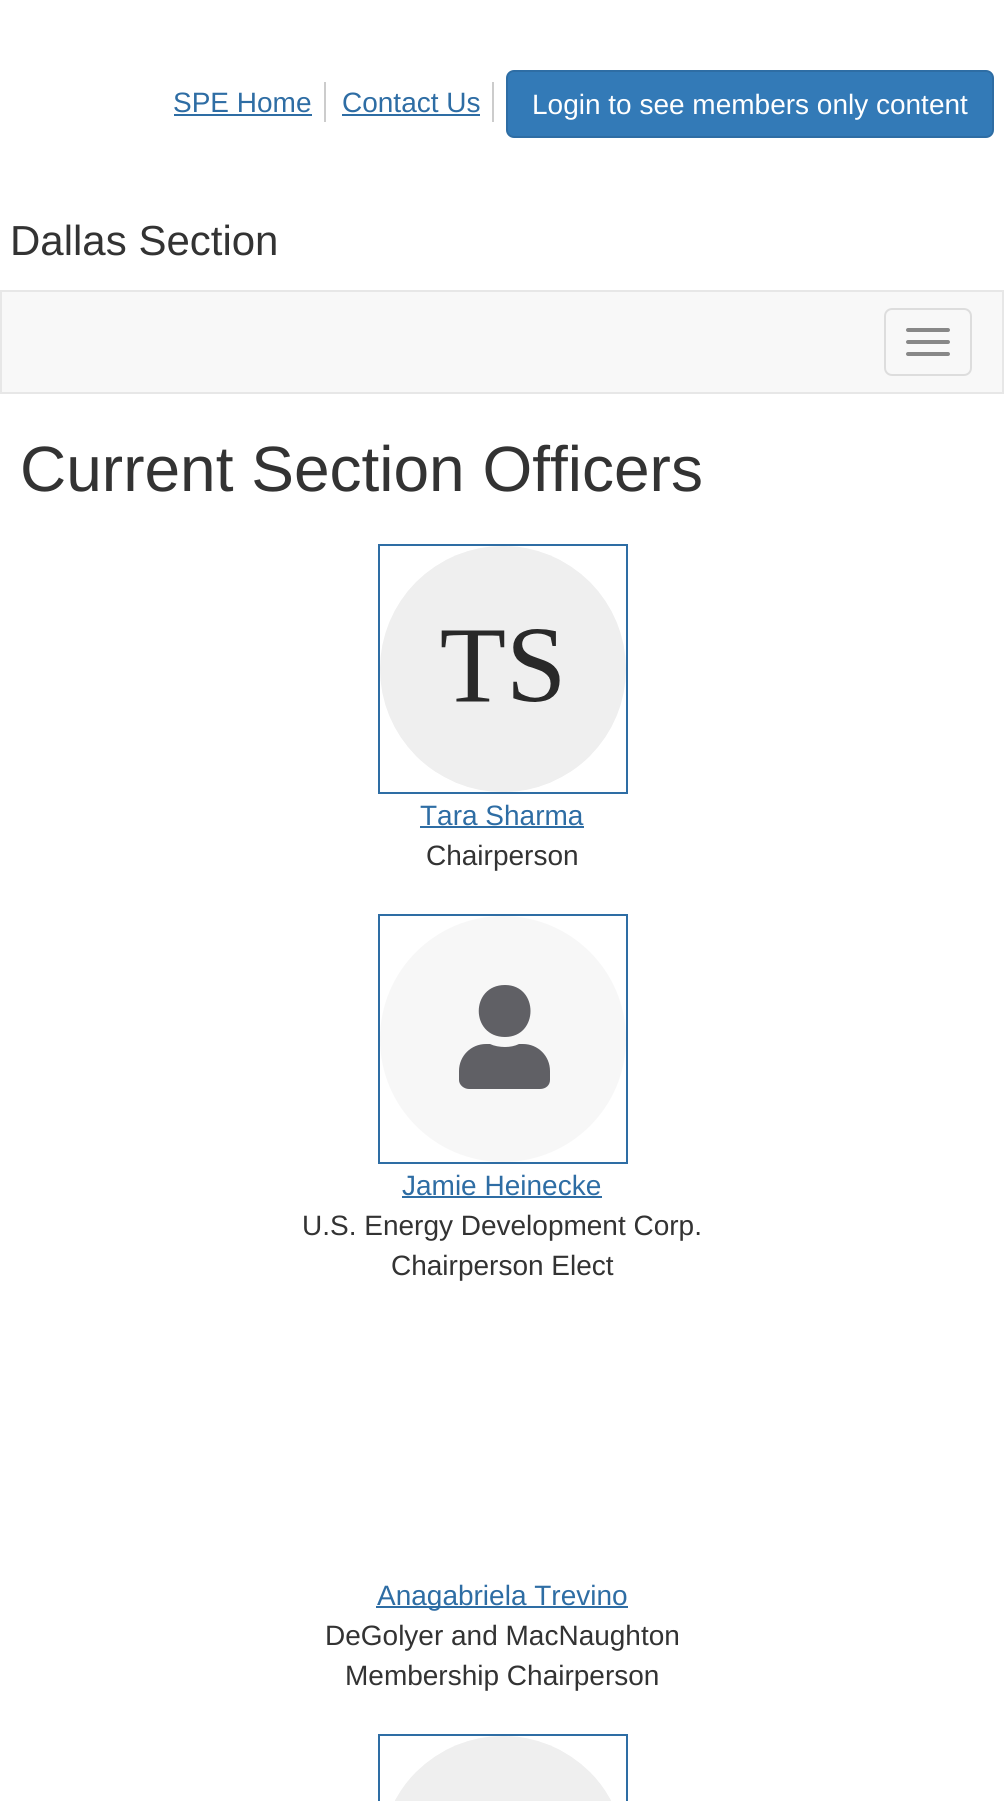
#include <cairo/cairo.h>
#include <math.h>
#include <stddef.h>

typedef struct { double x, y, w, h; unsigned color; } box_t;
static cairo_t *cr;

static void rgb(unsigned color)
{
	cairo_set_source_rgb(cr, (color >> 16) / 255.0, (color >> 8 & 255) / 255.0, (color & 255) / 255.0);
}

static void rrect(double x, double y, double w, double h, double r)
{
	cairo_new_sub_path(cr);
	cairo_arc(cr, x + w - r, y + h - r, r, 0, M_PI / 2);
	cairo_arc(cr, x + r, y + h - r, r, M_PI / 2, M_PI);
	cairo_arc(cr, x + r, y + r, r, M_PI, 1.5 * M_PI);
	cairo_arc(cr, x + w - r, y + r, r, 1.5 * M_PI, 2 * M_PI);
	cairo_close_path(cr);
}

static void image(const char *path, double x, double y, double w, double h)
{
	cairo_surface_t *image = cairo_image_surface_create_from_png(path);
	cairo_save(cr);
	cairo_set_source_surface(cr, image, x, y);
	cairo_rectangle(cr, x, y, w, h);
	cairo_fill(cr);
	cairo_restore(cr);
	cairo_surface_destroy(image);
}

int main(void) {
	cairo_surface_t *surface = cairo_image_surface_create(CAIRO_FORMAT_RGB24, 1004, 1801);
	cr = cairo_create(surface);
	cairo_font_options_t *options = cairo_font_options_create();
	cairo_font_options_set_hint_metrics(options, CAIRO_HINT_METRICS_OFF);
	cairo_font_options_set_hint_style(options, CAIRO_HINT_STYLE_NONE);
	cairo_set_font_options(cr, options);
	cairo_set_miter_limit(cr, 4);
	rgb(0xffffff);
	cairo_paint(cr);
	{
		static const box_t items[] = {
			{324, 82, 2, 40, 0xcccccc},
			{174, 114, 138, 2, 0x2e6da4},
			{492, 82, 2, 40, 0xcccccc},
			{342, 114, 138, 2, 0x2e6da4},
		};
		for (size_t i = 0; i < sizeof items / sizeof *items; i++) {
			rgb(items[i].color);
			cairo_rectangle(cr, items[i].x, items[i].y, items[i].w, items[i].h);
			cairo_fill(cr);
		}
	}
	rgb(0x337ab7);
	rrect(507, 71, 486, 66, 7);
	cairo_fill_preserve(cr);
	rgb(0x2e6da4);
	cairo_stroke(cr);
	rgb(0xf8f8f8);
	cairo_rectangle(cr, 1, 291, 1002, 102);
	cairo_fill_preserve(cr);
	rgb(0xe7e7e7);
	cairo_stroke(cr);
	rrect(885, 309, 86, 66, 7);
	rgb(0xdddddd);
	cairo_stroke(cr);
	rgb(0x888888);
	rrect(906, 328, 44, 4, 2);
	cairo_fill(cr);
	rrect(906, 340, 44, 4, 2);
	cairo_fill(cr);
	rrect(906, 352, 44, 4, 2);
	cairo_fill(cr);
	cairo_rectangle(cr, 379, 545, 248, 248);
	rgb(0x2e6da4);
	cairo_stroke(cr);
	image("img/1.png", 380, 546, 246, 246);
	cairo_rectangle(cr, 420, 826, 164, 2);
	cairo_fill(cr);
	cairo_rectangle(cr, 379, 915, 248, 248);
	cairo_stroke(cr);
	rgb(0xf7f7f7);
	cairo_arc(cr, 503, 1039, 123, 0, 2 * M_PI);
	cairo_fill(cr);
	rgb(0x606065);
	cairo_new_path(cr);
	cairo_move_to(cr, 505, 1037);
	cairo_curve_to(cr, 539, 1037, 539, 985, 505, 985);
	cairo_curve_to(cr, 470, 985, 470, 1037, 505, 1037);
	cairo_close_path(cr);
	cairo_move_to(cr, 523, 1044);
	cairo_line_to(cr, 519, 1044);
	cairo_curve_to(cr, 515, 1046, 510, 1047, 505, 1047);
	cairo_curve_to(cr, 500, 1047, 494, 1046, 490, 1044);
	cairo_line_to(cr, 486, 1044);
	cairo_curve_to(cr, 471, 1044, 459, 1056, 459, 1071);
	cairo_line_to(cr, 459, 1080);
	cairo_curve_to(cr, 459, 1085, 464, 1089, 469, 1089);
	cairo_line_to(cr, 540, 1089);
	cairo_curve_to(cr, 546, 1089, 550, 1085, 550, 1080);
	cairo_line_to(cr, 550, 1071);
	cairo_curve_to(cr, 550, 1056, 538, 1044, 523, 1044);
	cairo_close_path(cr);
	cairo_fill(cr);
	rgb(0x2e6da4);
	cairo_rectangle(cr, 402, 1196, 200, 2);
	cairo_fill(cr);
	cairo_rectangle(cr, 376, 1606, 252, 2);
	cairo_fill(cr);
	cairo_rectangle(cr, 379, 1735, 248, 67);
	cairo_stroke(cr);
	image("img/2.png", 395, 1736, 216, 65);
	cairo_select_font_face(cr, "Liberation Sans", CAIRO_FONT_SLANT_NORMAL, CAIRO_FONT_WEIGHT_NORMAL);
	cairo_set_font_size(cr, 28);
	cairo_move_to(cr, 173, 112);
	cairo_show_text(cr, "SPE Home");
	cairo_move_to(cr, 342, 112);
	cairo_show_text(cr, "Contact Us");
	rgb(0xffffff);
	cairo_move_to(cr, 532, 114);
	cairo_show_text(cr, "Login to see members only content");
	cairo_set_font_size(cr, 42);
	rgb(0x333333);
	cairo_move_to(cr, 10, 255);
	cairo_show_text(cr, "Dallas Section");
	cairo_set_font_size(cr, 64);
	cairo_move_to(cr, 20, 491);
	cairo_show_text(cr, "Current Section Officers");
	cairo_set_font_size(cr, 28);
	rgb(0x2e6da4);
	cairo_move_to(cr, 420, 825);
	cairo_show_text(cr, "Tara Sharma");
	rgb(0x333333);
	cairo_move_to(cr, 426, 865);
	cairo_show_text(cr, "Chairperson");
	rgb(0x2e6da4);
	cairo_move_to(cr, 402, 1195);
	cairo_show_text(cr, "Jamie Heinecke");
	rgb(0x333333);
	cairo_move_to(cr, 302, 1235);
	cairo_show_text(cr, "U.S. Energy Development Corp.");
	cairo_move_to(cr, 391, 1275);
	cairo_show_text(cr, "Chairperson Elect");
	rgb(0x2e6da4);
	cairo_move_to(cr, 377, 1605);
	cairo_show_text(cr, "Anagabriela Trevino");
	rgb(0x333333);
	cairo_move_to(cr, 325, 1645);
	cairo_show_text(cr, "DeGolyer and MacNaughton");
	cairo_move_to(cr, 345, 1685);
	cairo_show_text(cr, "Membership Chairperson");
	cairo_surface_write_to_png(surface, "page.png");
	cairo_font_options_destroy(options);
	cairo_destroy(cr);
	cairo_surface_destroy(surface);
	return 0;
}
